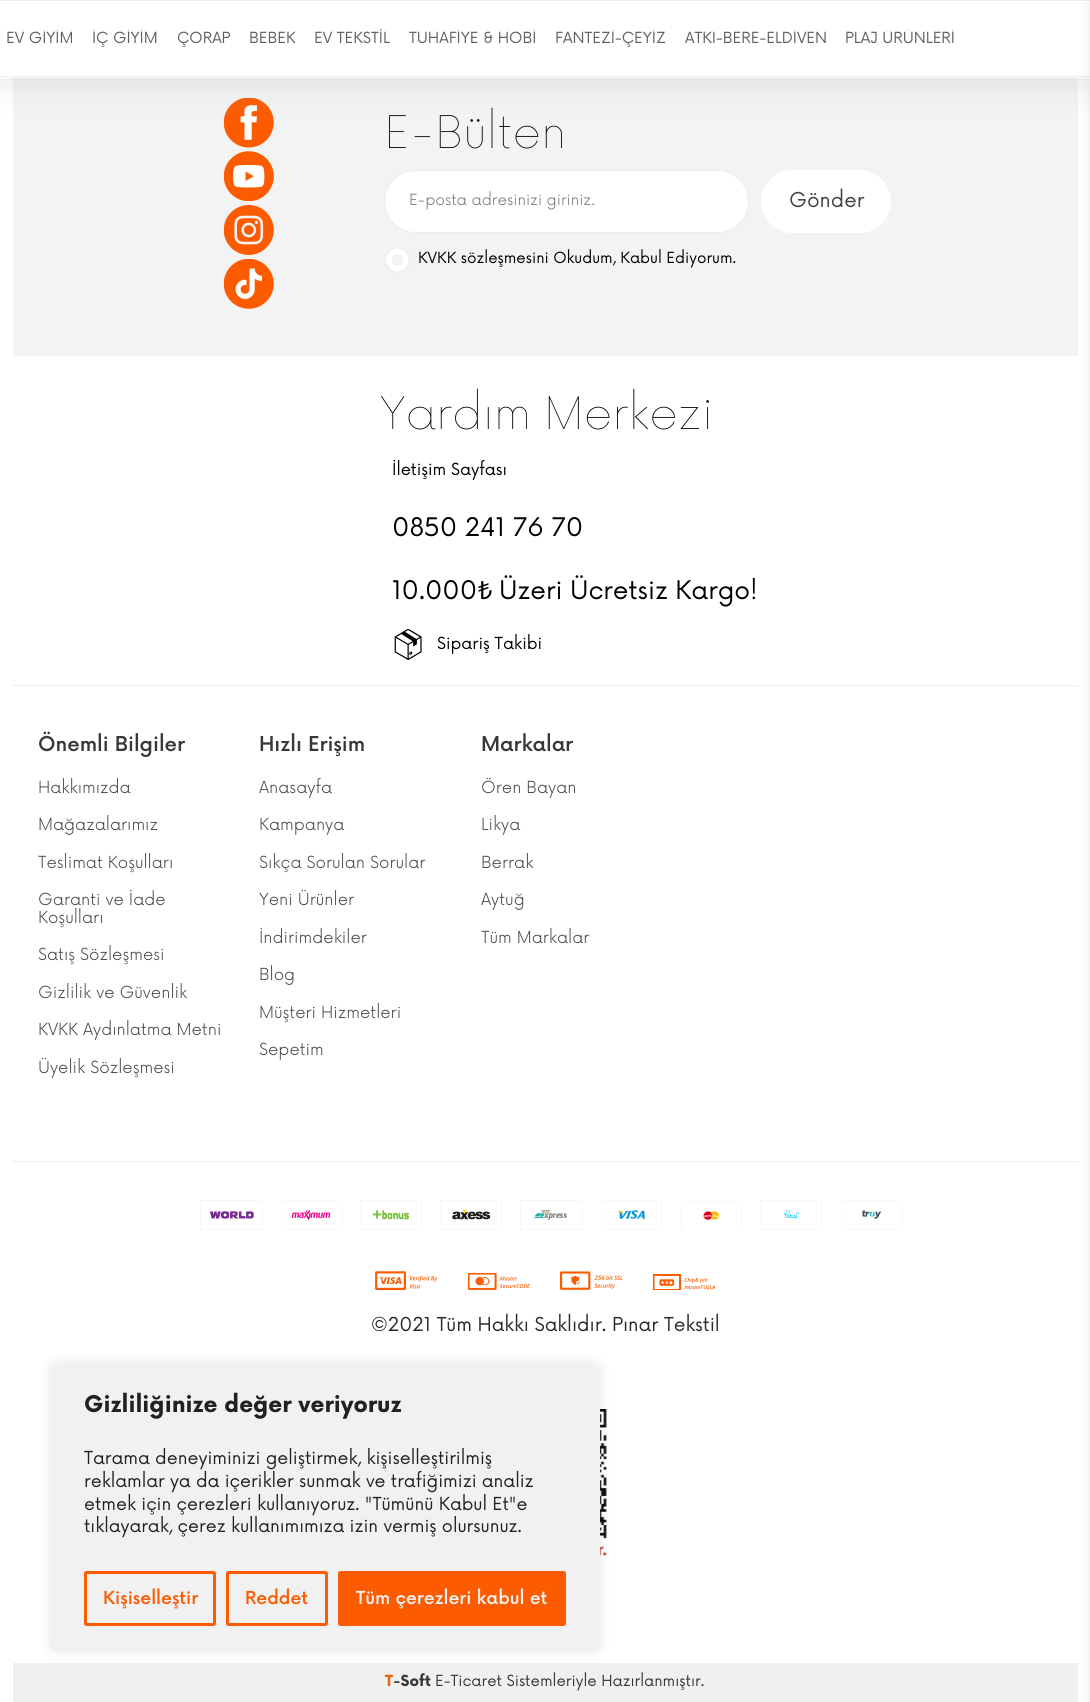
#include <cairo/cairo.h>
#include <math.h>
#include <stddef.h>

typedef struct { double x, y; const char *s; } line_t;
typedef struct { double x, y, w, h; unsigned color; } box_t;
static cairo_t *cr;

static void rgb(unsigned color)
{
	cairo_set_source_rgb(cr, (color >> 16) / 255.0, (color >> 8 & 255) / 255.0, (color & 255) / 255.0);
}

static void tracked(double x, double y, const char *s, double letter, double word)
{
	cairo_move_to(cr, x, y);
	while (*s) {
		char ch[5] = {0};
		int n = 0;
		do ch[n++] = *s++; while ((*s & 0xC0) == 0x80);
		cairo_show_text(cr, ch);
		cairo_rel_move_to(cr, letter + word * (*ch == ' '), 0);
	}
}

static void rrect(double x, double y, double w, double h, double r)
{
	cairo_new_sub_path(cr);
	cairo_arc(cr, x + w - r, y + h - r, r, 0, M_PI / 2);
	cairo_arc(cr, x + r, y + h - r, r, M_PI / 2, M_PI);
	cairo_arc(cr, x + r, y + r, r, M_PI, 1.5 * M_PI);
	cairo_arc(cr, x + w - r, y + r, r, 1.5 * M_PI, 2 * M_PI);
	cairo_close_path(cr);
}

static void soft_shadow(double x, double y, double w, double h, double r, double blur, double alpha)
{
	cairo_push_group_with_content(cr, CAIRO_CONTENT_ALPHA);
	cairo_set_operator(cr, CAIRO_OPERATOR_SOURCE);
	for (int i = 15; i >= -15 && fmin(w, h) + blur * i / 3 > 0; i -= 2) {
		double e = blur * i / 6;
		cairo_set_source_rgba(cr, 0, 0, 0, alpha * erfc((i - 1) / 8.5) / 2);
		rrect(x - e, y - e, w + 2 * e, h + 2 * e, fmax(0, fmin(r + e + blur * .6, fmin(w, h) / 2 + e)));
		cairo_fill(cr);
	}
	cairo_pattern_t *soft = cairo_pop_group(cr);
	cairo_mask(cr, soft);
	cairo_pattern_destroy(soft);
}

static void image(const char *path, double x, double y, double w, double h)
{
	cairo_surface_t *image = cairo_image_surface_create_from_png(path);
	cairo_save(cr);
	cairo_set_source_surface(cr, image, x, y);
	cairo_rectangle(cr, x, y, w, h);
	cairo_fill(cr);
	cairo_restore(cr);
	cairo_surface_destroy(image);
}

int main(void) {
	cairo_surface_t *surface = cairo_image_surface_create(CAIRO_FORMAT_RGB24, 1090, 1702);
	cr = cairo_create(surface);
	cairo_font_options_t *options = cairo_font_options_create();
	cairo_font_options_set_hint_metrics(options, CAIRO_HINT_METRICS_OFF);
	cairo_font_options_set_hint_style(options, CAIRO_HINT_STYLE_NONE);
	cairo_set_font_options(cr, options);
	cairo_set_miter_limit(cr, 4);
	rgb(0xffffff);
	cairo_paint(cr);
	rgb(0xf3f3f3);
	cairo_rectangle(cr, 13, 78, 1065, 278);
	cairo_fill(cr);
	image("img/1.png", 224, 98, 50, 50);
	rgb(0x959da5);
	soft_shadow(0, 10, 1090, 78, 0, 15, 0.2);
	{
		static const box_t items[] = {
			{0, 1, 1090, 77, 0xffffff},
			{0, 0, 1090, 1, 0xececec},
			{0, 76, 1090, 1, 0xececec},
			{13, 685, 1065, 1, 0xececec},
			{13, 1161, 1065, 1, 0xececec},
			{13, 1663, 1065, 39, 0xf0f0f0},
		};
		for (size_t i = 0; i < sizeof items / sizeof *items; i++) {
			rgb(items[i].color);
			cairo_rectangle(cr, items[i].x, items[i].y, items[i].w, items[i].h);
			cairo_fill(cr);
		}
	}
	rgb(0x000000);
	soft_shadow(1090, 3, 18, 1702, 0, 6, 0.1);
	image("img/2.png", 224, 151, 50, 50);
	image("img/3.png", 224, 205, 50, 50);
	image("img/4.png", 224, 259, 50, 50);
	rgb(0xffffff);
	rrect(384.5, 170.5, 364, 62, 31);
	cairo_fill_preserve(cr);
	rgb(0xececec);
	cairo_set_line_width(cr, 1);
	cairo_stroke(cr);
	rgb(0xffffff);
	rrect(761, 170, 130, 63, 31.5);
	cairo_fill(cr);
	cairo_arc(cr, 397.5, 260, 12, 0, 2 * M_PI);
	cairo_fill(cr);
	cairo_save(cr);
	cairo_rectangle(cr, 385, 248, 26, 25);
	cairo_clip(cr);
	cairo_arc(cr, 397.5, 260, 12, 0, 2 * M_PI);
	rgb(0xececec);
	cairo_set_line_width(cr, 1.2);
	cairo_stroke(cr);
	cairo_restore(cr);
	rgb(0xf3f3f3);
	cairo_arc(cr, 397.5, 260, 6, 0, 2 * M_PI);
	cairo_fill(cr);
	image("img/5.png", 394, 629, 28, 31);
	image("img/6.png", 200, 1200, 63, 30);
	image("img/7.png", 281, 1200, 62, 30);
	image("img/8.png", 360, 1200, 62, 30);
	image("img/9.png", 440, 1200, 62, 30);
	image("img/10.png", 520, 1200, 63, 30);
	image("img/11.png", 601, 1200, 61, 30);
	image("img/12.png", 680, 1201, 62, 29);
	image("img/13.png", 760, 1200, 62, 30);
	image("img/14.png", 841, 1200, 62, 30);
	image("img/15.png", 375, 1271, 63, 19);
	image("img/16.png", 468, 1273, 62, 17);
	image("img/17.png", 560, 1271, 63, 19);
	image("img/18.png", 653, 1274, 62, 16);
	image("img/19.png", 600, 1409, 7, 150);
	rgb(0xacabab);
	soft_shadow(50, 1363, 550, 288, 8, 6, 0.3);
	rgb(0xf1f1f1);
	rrect(50.5, 1364.5, 549, 288, 7.5);
	cairo_fill_preserve(cr);
	rgb(0xf4f4f4);
	cairo_stroke(cr);
	rrect(85.5, 1572.5, 129, 52, 1);
	rgb(0xfc5b00);
	cairo_set_line_width(cr, 3);
	cairo_stroke(cr);
	rrect(227.5, 1572.5, 99, 52, 1);
	cairo_stroke(cr);
	rrect(339.5, 1572.5, 225, 52, 1);
	cairo_fill_preserve(cr);
	cairo_stroke(cr);
	cairo_save(cr);
	cairo_rectangle(cr, 0, 30, 80, 19);
	cairo_clip(cr);
	cairo_select_font_face(cr, "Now", CAIRO_FONT_SLANT_NORMAL, CAIRO_FONT_WEIGHT_NORMAL);
	cairo_set_font_size(cr, 15);
	rgb(0x5e5e5e);
	cairo_move_to(cr, 6, 43);
	cairo_show_text(cr, "EV GİYİM");
	cairo_restore(cr);
	cairo_save(cr);
	cairo_rectangle(cr, 86, 30, 78, 19);
	cairo_clip(cr);
	cairo_select_font_face(cr, "Now", CAIRO_FONT_SLANT_NORMAL, CAIRO_FONT_WEIGHT_NORMAL);
	cairo_set_font_size(cr, 15);
	rgb(0x5e5e5e);
	cairo_move_to(cr, 92, 43);
	cairo_show_text(cr, "İÇ GİYİM");
	cairo_restore(cr);
	cairo_select_font_face(cr, "Now", CAIRO_FONT_SLANT_NORMAL, CAIRO_FONT_WEIGHT_NORMAL);
	cairo_set_font_size(cr, 15);
	rgb(0x5e5e5e);
	{
		static const line_t items[] = {
			{177, 43, "ÇORAP"},
			{249, 43, "BEBEK"},
			{314, 43, "EV TEKSTİL"},
		};
		for (size_t i = 0; i < sizeof items / sizeof *items; i++) {
			cairo_move_to(cr, items[i].x, items[i].y);
			cairo_show_text(cr, items[i].s);
		}
	}
	cairo_save(cr);
	cairo_rectangle(cr, 403, 30, 140, 19);
	cairo_clip(cr);
	cairo_move_to(cr, 409, 43);
	cairo_show_text(cr, "TUHAFİYE & HOBİ");
	cairo_restore(cr);
	cairo_save(cr);
	cairo_rectangle(cr, 549, 30, 124, 19);
	cairo_clip(cr);
	cairo_move_to(cr, 555, 43);
	cairo_show_text(cr, "FANTEZİ-ÇEYİZ");
	cairo_restore(cr);
	cairo_save(cr);
	cairo_rectangle(cr, 679, 30, 154, 19);
	cairo_clip(cr);
	cairo_move_to(cr, 685, 43);
	cairo_show_text(cr, "ATKI-BERE-ELDİVEN");
	cairo_restore(cr);
	cairo_save(cr);
	cairo_rectangle(cr, 839, 30, 122, 19);
	cairo_clip(cr);
	cairo_move_to(cr, 845, 43);
	cairo_show_text(cr, "PLAJ ÜRÜNLERİ");
	cairo_restore(cr);
	cairo_select_font_face(cr, "Now Thin", CAIRO_FONT_SLANT_NORMAL, CAIRO_FONT_WEIGHT_NORMAL);
	cairo_set_font_size(cr, 43.75);
	rgb(0x000000);
	cairo_move_to(cr, 384, 148);
	cairo_show_text(cr, "E-Bülten");
	cairo_select_font_face(cr, "Now Light", CAIRO_FONT_SLANT_NORMAL, CAIRO_FONT_WEIGHT_NORMAL);
	cairo_set_font_size(cr, 15);
	rgb(0x757575);
	cairo_move_to(cr, 409, 205);
	cairo_show_text(cr, "E-posta adresinizi giriniz.");
	cairo_select_font_face(cr, "Now", CAIRO_FONT_SLANT_NORMAL, CAIRO_FONT_WEIGHT_NORMAL);
	cairo_set_font_size(cr, 20);
	rgb(0x424242);
	cairo_move_to(cr, 789, 207);
	cairo_show_text(cr, "Gönder");
	cairo_set_font_size(cr, 15);
	rgb(0x000000);
	cairo_move_to(cr, 418, 263);
	cairo_show_text(cr, "KVKK sözleşmesini Okudum, Kabul Ediyorum.");
	cairo_select_font_face(cr, "Now Thin", CAIRO_FONT_SLANT_NORMAL, CAIRO_FONT_WEIGHT_NORMAL);
	cairo_set_font_size(cr, 43.75);
	tracked(380, 429, "Yardım Merkezi", 0, -1);
	cairo_select_font_face(cr, "Now", CAIRO_FONT_SLANT_NORMAL, CAIRO_FONT_WEIGHT_NORMAL);
	cairo_set_font_size(cr, 16.25);
	cairo_move_to(cr, 392, 475);
	cairo_show_text(cr, "İletişim Sayfası");
	cairo_set_font_size(cr, 25);
	cairo_move_to(cr, 392, 536);
	cairo_show_text(cr, "0850 241 76 70");
	cairo_move_to(cr, 392, 599);
	cairo_show_text(cr, "10.000");
	cairo_select_font_face(cr, "Noto Sans", CAIRO_FONT_SLANT_NORMAL, CAIRO_FONT_WEIGHT_NORMAL);
	cairo_move_to(cr, 478, 599);
	cairo_show_text(cr, "₺");
	cairo_select_font_face(cr, "Now", CAIRO_FONT_SLANT_NORMAL, CAIRO_FONT_WEIGHT_NORMAL);
	cairo_move_to(cr, 499, 599);
	cairo_show_text(cr, "Üzeri Ücretsiz Kargo!");
	cairo_set_font_size(cr, 16.25);
	cairo_move_to(cr, 437, 649);
	cairo_show_text(cr, "Sipariş Takibi");
	cairo_select_font_face(cr, "Now Medium", CAIRO_FONT_SLANT_NORMAL, CAIRO_FONT_WEIGHT_NORMAL);
	cairo_set_font_size(cr, 20);
	rgb(0x3b3734);
	cairo_move_to(cr, 38, 751);
	cairo_show_text(cr, "Önemli Bilgiler");
	cairo_select_font_face(cr, "Now Light", CAIRO_FONT_SLANT_NORMAL, CAIRO_FONT_WEIGHT_NORMAL);
	cairo_set_font_size(cr, 16.25);
	rgb(0x484848);
	{
		static const line_t items[] = {
			{38, 793, "Hakkımızda"},
			{38, 830, "Mağazalarımız"},
			{38, 868, "Teslimat Koşulları"},
			{38, 905, "Garanti ve İade"},
			{38, 923, "Koşulları"},
			{38, 960, "Satış Sözleşmesi"},
			{38, 998, "Gizlilik ve Güvenlik"},
			{38, 1035, "KVKK Aydınlatma Metni"},
			{38, 1073, "Üyelik Sözleşmesi"},
		};
		for (size_t i = 0; i < sizeof items / sizeof *items; i++) {
			cairo_move_to(cr, items[i].x, items[i].y);
			cairo_show_text(cr, items[i].s);
		}
	}
	cairo_select_font_face(cr, "Now Medium", CAIRO_FONT_SLANT_NORMAL, CAIRO_FONT_WEIGHT_NORMAL);
	cairo_set_font_size(cr, 20);
	rgb(0x3b3734);
	cairo_move_to(cr, 259, 751);
	cairo_show_text(cr, "Hızlı Erişim");
	cairo_select_font_face(cr, "Now Light", CAIRO_FONT_SLANT_NORMAL, CAIRO_FONT_WEIGHT_NORMAL);
	cairo_set_font_size(cr, 16.25);
	rgb(0x484848);
	{
		static const line_t items[] = {
			{259, 793, "Anasayfa"},
			{259, 830, "Kampanya"},
			{259, 868, "Sıkça Sorulan Sorular"},
			{259, 905, "Yeni Ürünler"},
			{259, 943, "İndirimdekiler"},
			{259, 980, "Blog"},
			{259, 1018, "Müşteri Hizmetleri"},
			{259, 1055, "Sepetim"},
		};
		for (size_t i = 0; i < sizeof items / sizeof *items; i++) {
			cairo_move_to(cr, items[i].x, items[i].y);
			cairo_show_text(cr, items[i].s);
		}
	}
	cairo_select_font_face(cr, "Now Medium", CAIRO_FONT_SLANT_NORMAL, CAIRO_FONT_WEIGHT_NORMAL);
	cairo_set_font_size(cr, 20);
	rgb(0x3b3734);
	cairo_move_to(cr, 481, 751);
	cairo_show_text(cr, "Markalar");
	cairo_select_font_face(cr, "Now Light", CAIRO_FONT_SLANT_NORMAL, CAIRO_FONT_WEIGHT_NORMAL);
	cairo_set_font_size(cr, 16.25);
	rgb(0x484848);
	{
		static const line_t items[] = {
			{481, 793, "Ören Bayan"},
			{481, 830, "Likya"},
			{481, 868, "Berrak"},
			{481, 905, "Aytuğ"},
			{481, 943, "Tüm Markalar"},
		};
		for (size_t i = 0; i < sizeof items / sizeof *items; i++) {
			cairo_move_to(cr, items[i].x, items[i].y);
			cairo_show_text(cr, items[i].s);
		}
	}
	cairo_select_font_face(cr, "Now", CAIRO_FONT_SLANT_NORMAL, CAIRO_FONT_WEIGHT_NORMAL);
	cairo_set_font_size(cr, 18.75);
	rgb(0x2a2a2a);
	cairo_move_to(cr, 371, 1331);
	cairo_show_text(cr, "©2021 Tüm Hakkı Saklıdır. Pınar Tekstil");
	cairo_select_font_face(cr, "Now", CAIRO_FONT_SLANT_NORMAL, CAIRO_FONT_WEIGHT_BOLD);
	cairo_set_font_size(cr, 15);
	rgb(0xec6408);
	cairo_move_to(cr, 385, 1686);
	cairo_show_text(cr, "T");
	rgb(0x3b3734);
	cairo_move_to(cr, 393, 1686);
	cairo_show_text(cr, "-Soft");
	cairo_select_font_face(cr, "Now", CAIRO_FONT_SLANT_NORMAL, CAIRO_FONT_WEIGHT_NORMAL);
	cairo_move_to(cr, 435, 1686);
	cairo_show_text(cr, "E-Ticaret Sistemleriyle Hazırlanmıştır.");
	cairo_select_font_face(cr, "Now", CAIRO_FONT_SLANT_NORMAL, CAIRO_FONT_WEIGHT_BOLD);
	cairo_set_font_size(cr, 22.5);
	rgb(0x212121);
	cairo_move_to(cr, 84, 1412);
	cairo_show_text(cr, "Gizliliğinize değer veriyoruz");
	cairo_select_font_face(cr, "Now", CAIRO_FONT_SLANT_NORMAL, CAIRO_FONT_WEIGHT_NORMAL);
	cairo_set_font_size(cr, 17.5);
	{
		static const line_t items[] = {
			{84, 1464, "Tarama deneyiminizi geliştirmek, kişiselleştirilmiş"},
			{84, 1487, "reklamlar ya da içerikler sunmak ve trafiğimizi analiz"},
			{84, 1510, "etmek için çerezleri kullanıyoruz. \"Tümünü Kabul Et\"e"},
			{84, 1532, "tıklayarak, çerez kullanımımıza izin vermiş olursunuz."},
		};
		for (size_t i = 0; i < sizeof items / sizeof *items; i++) {
			cairo_move_to(cr, items[i].x, items[i].y);
			cairo_show_text(cr, items[i].s);
		}
	}
	cairo_select_font_face(cr, "Now Medium", CAIRO_FONT_SLANT_NORMAL, CAIRO_FONT_WEIGHT_NORMAL);
	rgb(0xfc5b00);
	cairo_move_to(cr, 103, 1604);
	cairo_show_text(cr, "Kişiselleştir");
	cairo_move_to(cr, 245, 1604);
	cairo_show_text(cr, "Reddet");
	rgb(0xf1f1f1);
	cairo_move_to(cr, 356, 1604);
	cairo_show_text(cr, "Tüm çerezleri kabul et");
	cairo_surface_write_to_png(surface, "page.png");
	cairo_font_options_destroy(options);
	cairo_destroy(cr);
	cairo_surface_destroy(surface);
	return 0;
}
